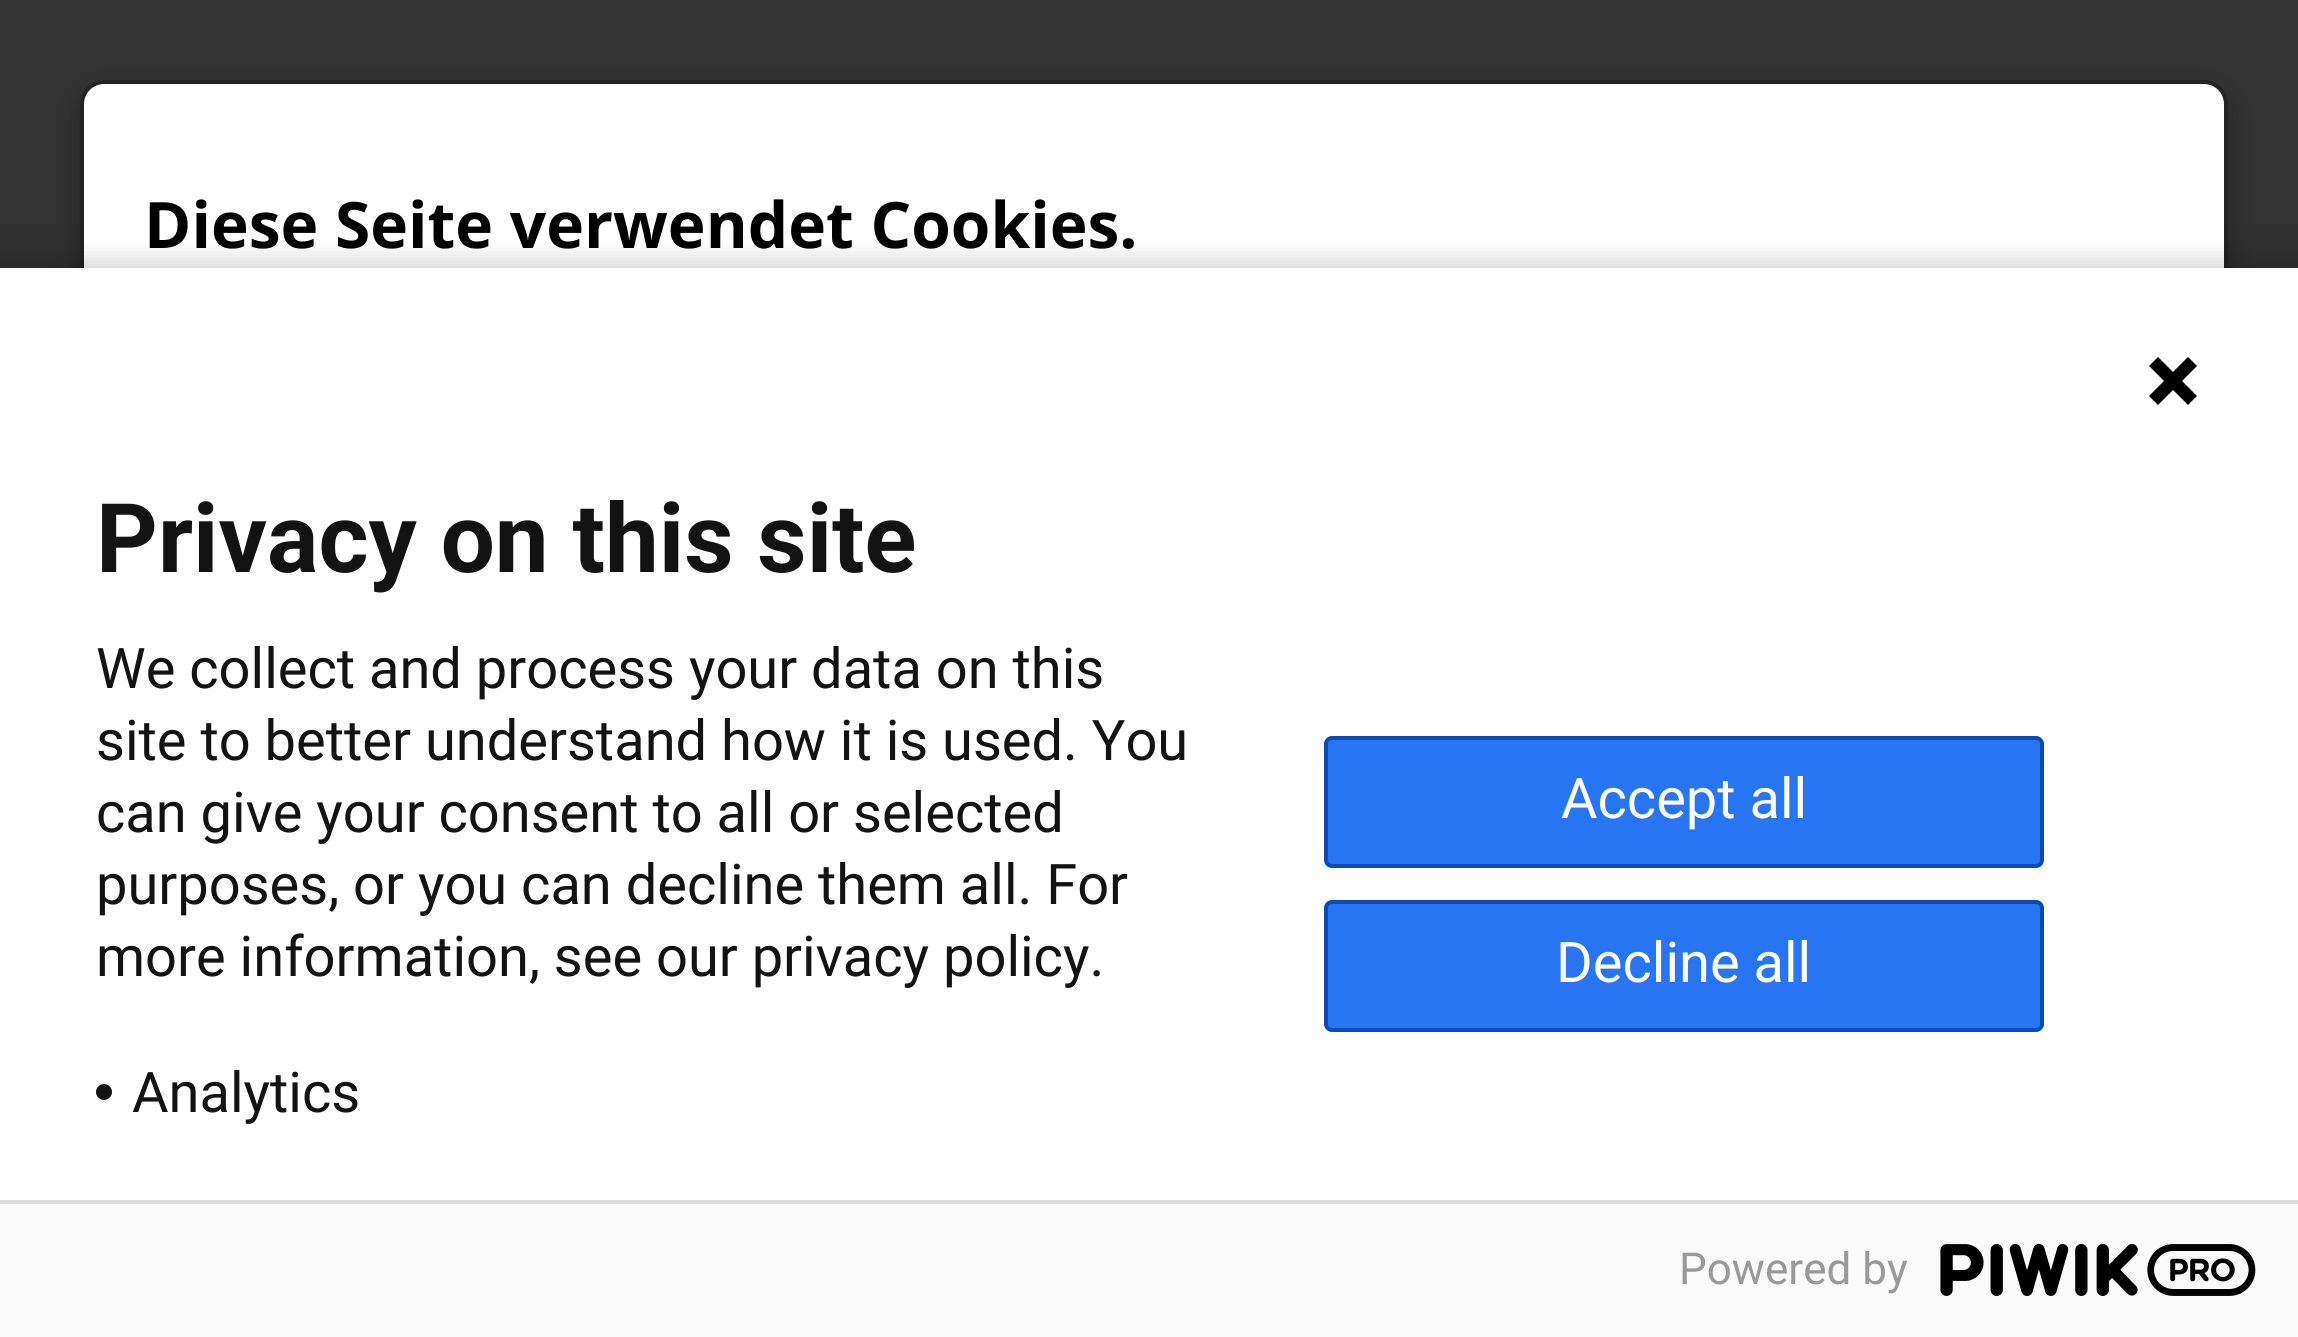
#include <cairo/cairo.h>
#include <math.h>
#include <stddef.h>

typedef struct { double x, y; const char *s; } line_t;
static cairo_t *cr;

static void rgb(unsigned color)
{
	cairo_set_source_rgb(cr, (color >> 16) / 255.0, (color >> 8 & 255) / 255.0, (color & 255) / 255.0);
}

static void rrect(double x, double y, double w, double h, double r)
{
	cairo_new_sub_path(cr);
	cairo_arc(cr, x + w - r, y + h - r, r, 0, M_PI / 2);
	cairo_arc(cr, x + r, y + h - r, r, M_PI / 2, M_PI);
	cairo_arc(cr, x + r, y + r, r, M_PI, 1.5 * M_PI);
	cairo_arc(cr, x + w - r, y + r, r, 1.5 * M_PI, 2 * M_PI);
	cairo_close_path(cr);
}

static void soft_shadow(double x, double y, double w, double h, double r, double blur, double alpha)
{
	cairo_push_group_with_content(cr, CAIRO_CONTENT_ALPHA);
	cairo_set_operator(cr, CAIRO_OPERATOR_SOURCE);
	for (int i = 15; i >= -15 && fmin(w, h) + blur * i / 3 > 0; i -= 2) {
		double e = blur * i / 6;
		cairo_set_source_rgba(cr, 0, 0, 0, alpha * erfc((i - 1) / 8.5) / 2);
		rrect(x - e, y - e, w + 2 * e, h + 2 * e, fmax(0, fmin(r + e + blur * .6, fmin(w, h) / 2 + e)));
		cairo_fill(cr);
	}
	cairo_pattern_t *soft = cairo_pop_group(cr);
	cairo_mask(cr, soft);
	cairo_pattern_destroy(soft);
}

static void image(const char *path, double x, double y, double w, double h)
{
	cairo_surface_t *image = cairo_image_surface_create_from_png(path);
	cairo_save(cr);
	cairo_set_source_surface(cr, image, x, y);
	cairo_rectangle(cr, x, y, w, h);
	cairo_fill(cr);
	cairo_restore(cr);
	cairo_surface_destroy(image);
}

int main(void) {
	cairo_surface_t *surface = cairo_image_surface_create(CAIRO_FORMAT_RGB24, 2298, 1337);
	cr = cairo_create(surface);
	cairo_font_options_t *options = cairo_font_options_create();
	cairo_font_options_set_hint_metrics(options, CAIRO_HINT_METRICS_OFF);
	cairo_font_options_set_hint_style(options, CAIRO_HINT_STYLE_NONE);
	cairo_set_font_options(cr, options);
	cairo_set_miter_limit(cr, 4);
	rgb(0x333333);
	cairo_paint(cr);
	rgb(0x303030);
	cairo_rectangle(cr, 0, 224, 2298, 44);
	cairo_fill(cr);
	cairo_save(cr);
	cairo_set_fill_rule(cr, CAIRO_FILL_RULE_EVEN_ODD);
	cairo_new_path(cr);
	cairo_move_to(cr, 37, 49);
	cairo_line_to(cr, 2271, 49);
	cairo_line_to(cr, 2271, 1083);
	cairo_line_to(cr, 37, 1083);
	cairo_close_path(cr);
	cairo_move_to(cr, 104, 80);
	cairo_line_to(cr, 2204, 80);
	cairo_curve_to(cr, 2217.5, 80, 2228, 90.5, 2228, 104);
	cairo_line_to(cr, 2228, 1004);
	cairo_curve_to(cr, 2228, 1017.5, 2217.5, 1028, 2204, 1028);
	cairo_line_to(cr, 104, 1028);
	cairo_curve_to(cr, 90.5, 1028, 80, 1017.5, 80, 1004);
	cairo_line_to(cr, 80, 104);
	cairo_curve_to(cr, 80, 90.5, 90.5, 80, 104, 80);
	cairo_close_path(cr);
	cairo_clip(cr);
	rgb(0x000000);
	soft_shadow(80, 92, 2148, 948, 24, 14, 0.3);
	cairo_restore(cr);
	rgb(0xffffff);
	rrect(84, 84, 2140, 940, 20);
	cairo_fill(cr);
	rrect(82, 82, 2144, 944, 22);
	cairo_set_source_rgba(cr, 0, 0, 0, 0.3);
	cairo_set_line_width(cr, 4);
	cairo_stroke(cr);
	rgb(0x000000);
	soft_shadow(-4, 256, 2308, 1080, 0, 10, 0.14);
	rgb(0xffffff);
	cairo_rectangle(cr, 0, 268, 2298, 932);
	cairo_fill(cr);
	rgb(0x000000);
	cairo_new_path(cr);
	cairo_move_to(cr, 2149, 366);
	cairo_line_to(cr, 2158, 357);
	cairo_line_to(cr, 2197, 396);
	cairo_line_to(cr, 2188, 405);
	cairo_line_to(cr, 2149, 366);
	cairo_fill(cr);
	cairo_new_path(cr);
	cairo_move_to(cr, 2188, 357);
	cairo_line_to(cr, 2197, 366);
	cairo_line_to(cr, 2158, 405);
	cairo_line_to(cr, 2149, 396);
	cairo_line_to(cr, 2188, 357);
	cairo_fill(cr);
	rgb(0x131313);
	cairo_arc(cr, 104, 1092, 8, 0, 2 * M_PI);
	cairo_fill(cr);
	rgb(0x2775f2);
	rrect(1326, 738, 716, 128, 6);
	cairo_fill_preserve(cr);
	rgb(0x0b4bb3);
	cairo_stroke(cr);
	rgb(0x2775f2);
	rrect(1326, 902, 716, 128, 6);
	cairo_fill_preserve(cr);
	rgb(0x0b4bb3);
	cairo_stroke(cr);
	rgb(0xfafafa);
	cairo_rectangle(cr, 0, 1204, 2298, 133);
	cairo_fill(cr);
	rgb(0xdddddd);
	cairo_rectangle(cr, 0, 1200, 2298, 4);
	cairo_fill(cr);
	image("img/1.png", 1940, 1244, 316, 52);
	cairo_select_font_face(cr, "Open Sans", CAIRO_FONT_SLANT_NORMAL, CAIRO_FONT_WEIGHT_BOLD);
	cairo_set_font_size(cr, 64);
	rgb(0x000000);
	cairo_move_to(cr, 144, 248);
	cairo_show_text(cr, "Diese Seite verwendet Cookies.");
	cairo_select_font_face(cr, "Roboto", CAIRO_FONT_SLANT_NORMAL, CAIRO_FONT_WEIGHT_BOLD);
	cairo_set_font_size(cr, 96);
	rgb(0x131313);
	cairo_move_to(cr, 96, 572);
	cairo_show_text(cr, "Privacy on this site");
	cairo_select_font_face(cr, "Roboto", CAIRO_FONT_SLANT_NORMAL, CAIRO_FONT_WEIGHT_NORMAL);
	cairo_set_font_size(cr, 56);
	{
		static const line_t items[] = {
			{96, 688, "We collect and process your data on this"},
			{96, 760, "site to better understand how it is used. You"},
			{96, 832, "can give your consent to all or selected"},
			{96, 904, "purposes, or you can decline them all. For"},
			{96, 976, "more information, see our privacy policy."},
			{132, 1112, "Analytics"},
		};
		for (size_t i = 0; i < sizeof items / sizeof *items; i++) {
			cairo_move_to(cr, items[i].x, items[i].y);
			cairo_show_text(cr, items[i].s);
		}
	}
	rgb(0xffffff);
	cairo_move_to(cr, 1561, 818);
	cairo_show_text(cr, "Accept all");
	cairo_move_to(cr, 1556, 982);
	cairo_show_text(cr, "Decline all");
	cairo_set_font_size(cr, 44);
	rgb(0x999999);
	cairo_move_to(cr, 1679, 1284);
	cairo_show_text(cr, "Powered by");
	cairo_surface_write_to_png(surface, "page.png");
	cairo_font_options_destroy(options);
	cairo_destroy(cr);
	cairo_surface_destroy(surface);
	return 0;
}
